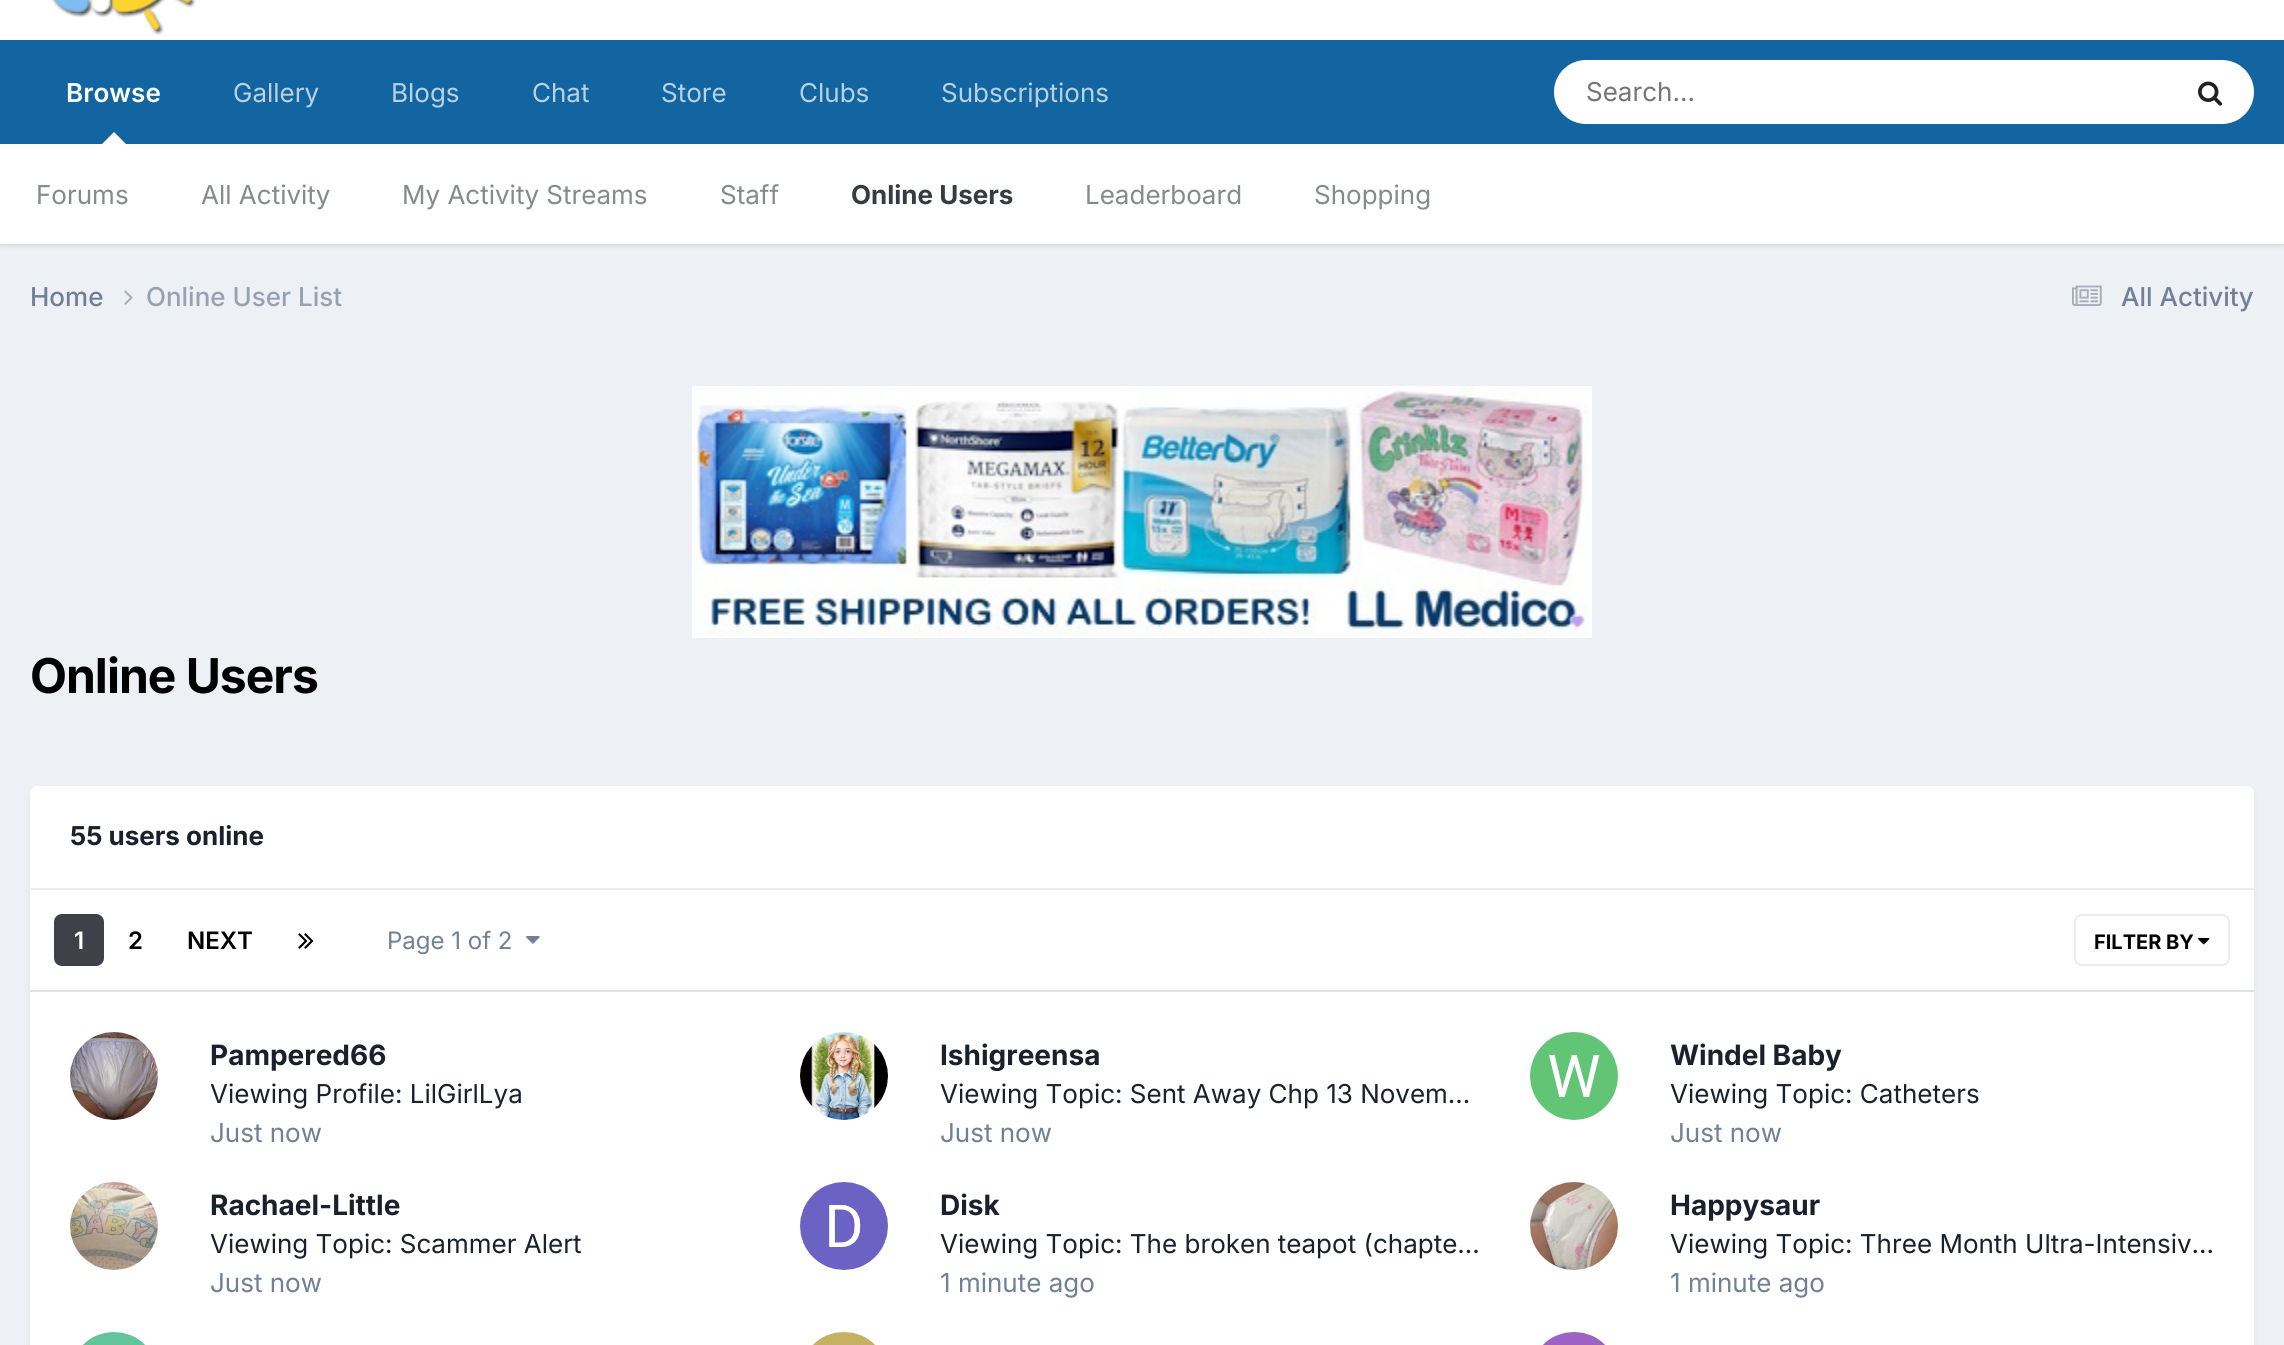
#include <cairo/cairo.h>
#include <math.h>
#include <stddef.h>

typedef struct { double x, y; const char *s; } line_t;
static cairo_t *cr;

static void rgb(unsigned color)
{
	cairo_set_source_rgb(cr, (color >> 16) / 255.0, (color >> 8 & 255) / 255.0, (color & 255) / 255.0);
}

static void tracked(double x, double y, const char *s, double letter, double word)
{
	cairo_move_to(cr, x, y);
	while (*s) {
		char ch[5] = {0};
		int n = 0;
		do ch[n++] = *s++; while ((*s & 0xC0) == 0x80);
		cairo_show_text(cr, ch);
		cairo_rel_move_to(cr, letter + word * (*ch == ' '), 0);
	}
}

static void rrect(double x, double y, double w, double h, double r)
{
	cairo_new_sub_path(cr);
	cairo_arc(cr, x + w - r, y + h - r, r, 0, M_PI / 2);
	cairo_arc(cr, x + r, y + h - r, r, M_PI / 2, M_PI);
	cairo_arc(cr, x + r, y + r, r, M_PI, 1.5 * M_PI);
	cairo_arc(cr, x + w - r, y + r, r, 1.5 * M_PI, 2 * M_PI);
	cairo_close_path(cr);
}

static void soft_shadow(double x, double y, double w, double h, double r, double blur, double alpha)
{
	cairo_push_group_with_content(cr, CAIRO_CONTENT_ALPHA);
	cairo_set_operator(cr, CAIRO_OPERATOR_SOURCE);
	for (int i = 15; i >= -15 && fmin(w, h) + blur * i / 3 > 0; i -= 2) {
		double e = blur * i / 6;
		cairo_set_source_rgba(cr, 0, 0, 0, alpha * erfc((i - 1) / 8.5) / 2);
		rrect(x - e, y - e, w + 2 * e, h + 2 * e, fmax(0, fmin(r + e + blur * .6, fmin(w, h) / 2 + e)));
		cairo_fill(cr);
	}
	cairo_pattern_t *soft = cairo_pop_group(cr);
	cairo_mask(cr, soft);
	cairo_pattern_destroy(soft);
}

static void image(const char *path, double x, double y, double w, double h)
{
	cairo_surface_t *image = cairo_image_surface_create_from_png(path);
	cairo_save(cr);
	cairo_set_source_surface(cr, image, x, y);
	cairo_rectangle(cr, x, y, w, h);
	cairo_fill(cr);
	cairo_restore(cr);
	cairo_surface_destroy(image);
}

int main(void) {
	cairo_surface_t *surface = cairo_image_surface_create(CAIRO_FORMAT_RGB24, 2284, 1345);
	cr = cairo_create(surface);
	cairo_font_options_t *options = cairo_font_options_create();
	cairo_font_options_set_hint_metrics(options, CAIRO_HINT_METRICS_OFF);
	cairo_font_options_set_hint_style(options, CAIRO_HINT_STYLE_NONE);
	cairo_set_font_options(cr, options);
	cairo_set_miter_limit(cr, 4);
	rgb(0xedf0f4);
	cairo_paint(cr);
	rgb(0xffffff);
	cairo_rectangle(cr, 0, 0, 2284, 40);
	cairo_fill(cr);
	image("img/1.png", 52, 0, 144, 35);
	rgb(0x1265a1);
	cairo_rectangle(cr, 0, 40, 2284, 104);
	cairo_fill(cr);
	rgb(0x000000);
	soft_shadow(0, 146, 2284, 100, 0, 2, 0.1);
	rgb(0xffffff);
	cairo_new_path(cr);
	cairo_move_to(cr, 126, 144);
	cairo_line_to(cr, 102, 144);
	cairo_line_to(cr, 114, 132);
	cairo_close_path(cr);
	cairo_fill(cr);
	rrect(1554, 60, 700, 64, 32);
	cairo_fill(cr);
	image("img/2.png", 2198, 81, 25, 25);
	cairo_rectangle(cr, 0, 144, 2284, 100);
	cairo_fill(cr);
	image("img/3.png", 124, 290, 9, 15);
	image("img/4.png", 2072, 285, 30, 21);
	image("img/5.png", 692, 386, 900, 252);
	rgb(0x2d3748);
	soft_shadow(32, 792, 2220, 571, 6, 4, 0.1);
	rgb(0xffffff);
	rrect(30, 786, 2224, 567, 8);
	cairo_fill(cr);
	cairo_new_path(cr);
	cairo_move_to(cr, 38, 786);
	cairo_line_to(cr, 2246, 786);
	cairo_curve_to(cr, 2250.5, 786, 2254, 789.5, 2254, 794);
	cairo_line_to(cr, 2254, 890);
	cairo_line_to(cr, 30, 890);
	cairo_line_to(cr, 30, 794);
	cairo_curve_to(cr, 30, 789.5, 33.5, 786, 38, 786);
	cairo_close_path(cr);
	cairo_fill(cr);
	rgb(0xeaecef);
	cairo_rectangle(cr, 30, 888, 2224, 2);
	cairo_fill(cr);
	rgb(0xe1e2e3);
	cairo_rectangle(cr, 30, 990, 2224, 2);
	cairo_fill(cr);
	rgb(0x3e4148);
	rrect(54, 914, 50, 52, 8);
	cairo_fill(cr);
	image("img/6.png", 298, 933, 16, 16);
	image("img/7.png", 526, 936, 14, 8);
	image("img/8.png", 2198, 938, 12, 7);
	rrect(2075, 915, 154, 50, 7);
	rgb(0xebecec);
	cairo_stroke(cr);
	image("img/9.png", 70, 1032, 88, 88);
	image("img/10.png", 800, 1032, 88, 88);
	image("img/11.png", 1530, 1032, 88, 88);
	image("img/12.png", 70, 1182, 88, 88);
	image("img/13.png", 800, 1182, 88, 88);
	image("img/14.png", 1530, 1182, 88, 88);
	image("img/15.png", 83, 1332, 62, 13);
	image("img/16.png", 813, 1332, 62, 13);
	image("img/17.png", 1543, 1332, 62, 13);
	cairo_select_font_face(cr, "Inter", CAIRO_FONT_SLANT_NORMAL, CAIRO_FONT_WEIGHT_NORMAL);
	cairo_set_font_size(cr, 26);
	rgb(0xb8d1e3);
	{
		static const line_t items[] = {
			{233, 102, "Gallery"},
			{532, 102, "Chat"},
			{661, 102, "Store"},
			{799, 102, "Clubs"},
			{941, 102, "Subscriptions"},
		};
		for (size_t i = 0; i < sizeof items / sizeof *items; i++) {
			cairo_move_to(cr, items[i].x, items[i].y);
			cairo_show_text(cr, items[i].s);
		}
	}
	cairo_select_font_face(cr, "Inter SemiBold", CAIRO_FONT_SLANT_NORMAL, CAIRO_FONT_WEIGHT_NORMAL);
	rgb(0xffffff);
	cairo_move_to(cr, 66, 102);
	cairo_show_text(cr, "Browse");
	cairo_select_font_face(cr, "Inter", CAIRO_FONT_SLANT_NORMAL, CAIRO_FONT_WEIGHT_NORMAL);
	rgb(0x868a8d);
	{
		static const line_t items[] = {
			{36, 204, "Forums"},
			{201, 204, "All Activity"},
			{402, 204, "My Activity Streams"},
			{720, 204, "Staff"},
		};
		for (size_t i = 0; i < sizeof items / sizeof *items; i++) {
			cairo_move_to(cr, items[i].x, items[i].y);
			cairo_show_text(cr, items[i].s);
		}
	}
	cairo_select_font_face(cr, "Inter", CAIRO_FONT_SLANT_NORMAL, CAIRO_FONT_WEIGHT_BOLD);
	rgb(0x353c41);
	cairo_move_to(cr, 851, 204);
	cairo_show_text(cr, "Online Users");
	cairo_select_font_face(cr, "Inter", CAIRO_FONT_SLANT_NORMAL, CAIRO_FONT_WEIGHT_NORMAL);
	rgb(0x868a8d);
	cairo_move_to(cr, 1085, 204);
	cairo_show_text(cr, "Leaderboard");
	cairo_move_to(cr, 1314, 204);
	cairo_show_text(cr, "Shopping");
	rgb(0xb8d1e3);
	cairo_move_to(cr, 391, 102);
	cairo_show_text(cr, "Blogs");
	rgb(0x757575);
	cairo_move_to(cr, 1586, 101);
	cairo_show_text(cr, "Search...");
	cairo_select_font_face(cr, "Inter Medium", CAIRO_FONT_SLANT_NORMAL, CAIRO_FONT_WEIGHT_NORMAL);
	rgb(0x718096);
	cairo_move_to(cr, 30, 306);
	cairo_show_text(cr, "Home");
	rgb(0x96a2b2);
	cairo_move_to(cr, 146, 306);
	cairo_show_text(cr, "Online User List");
	rgb(0x718096);
	cairo_move_to(cr, 2121, 306);
	cairo_show_text(cr, "All Activity");
	cairo_select_font_face(cr, "Inter", CAIRO_FONT_SLANT_NORMAL, CAIRO_FONT_WEIGHT_BOLD);
	cairo_set_font_size(cr, 48);
	rgb(0x000000);
	tracked(30, 693, "Online Users", -1, 0);
	cairo_set_font_size(cr, 26);
	rgb(0x1a202c);
	cairo_move_to(cr, 70, 845);
	cairo_show_text(cr, "55 users online");
	cairo_select_font_face(cr, "Inter SemiBold", CAIRO_FONT_SLANT_NORMAL, CAIRO_FONT_WEIGHT_NORMAL);
	cairo_set_font_size(cr, 24);
	rgb(0xffffff);
	cairo_move_to(cr, 74, 949);
	cairo_show_text(cr, "1");
	rgb(0x000000);
	cairo_move_to(cr, 128, 949);
	cairo_show_text(cr, "2");
	cairo_move_to(cr, 187, 949);
	cairo_show_text(cr, "NEXT");
	cairo_select_font_face(cr, "Inter", CAIRO_FONT_SLANT_NORMAL, CAIRO_FONT_WEIGHT_NORMAL);
	rgb(0x718096);
	cairo_move_to(cr, 387, 949);
	cairo_show_text(cr, "Page 1 of 2");
	cairo_select_font_face(cr, "Inter", CAIRO_FONT_SLANT_NORMAL, CAIRO_FONT_WEIGHT_BOLD);
	cairo_set_font_size(cr, 20);
	rgb(0x000000);
	cairo_move_to(cr, 2094, 949);
	cairo_show_text(cr, "FILTER BY");
	cairo_set_font_size(cr, 28);
	rgb(0x1a202c);
	cairo_move_to(cr, 210, 1065);
	cairo_show_text(cr, "Pampered66");
	cairo_select_font_face(cr, "Inter", CAIRO_FONT_SLANT_NORMAL, CAIRO_FONT_WEIGHT_NORMAL);
	cairo_set_font_size(cr, 26);
	cairo_move_to(cr, 210, 1103);
	cairo_show_text(cr, "Viewing Profile: LilGirlLya");
	rgb(0x718096);
	cairo_move_to(cr, 210, 1142);
	cairo_show_text(cr, "Just now");
	cairo_select_font_face(cr, "Inter", CAIRO_FONT_SLANT_NORMAL, CAIRO_FONT_WEIGHT_BOLD);
	cairo_set_font_size(cr, 28);
	rgb(0x1a202c);
	cairo_move_to(cr, 940, 1065);
	cairo_show_text(cr, "Ishigreensa");
	cairo_select_font_face(cr, "Inter", CAIRO_FONT_SLANT_NORMAL, CAIRO_FONT_WEIGHT_NORMAL);
	cairo_set_font_size(cr, 26);
	cairo_move_to(cr, 940, 1103);
	cairo_show_text(cr, "Viewing Topic: Sent Away Chp 13 Novem…");
	rgb(0x718096);
	cairo_move_to(cr, 940, 1142);
	cairo_show_text(cr, "Just now");
	cairo_select_font_face(cr, "Inter", CAIRO_FONT_SLANT_NORMAL, CAIRO_FONT_WEIGHT_BOLD);
	cairo_set_font_size(cr, 28);
	rgb(0x1a202c);
	cairo_move_to(cr, 1670, 1065);
	cairo_show_text(cr, "Windel Baby");
	cairo_select_font_face(cr, "Inter", CAIRO_FONT_SLANT_NORMAL, CAIRO_FONT_WEIGHT_NORMAL);
	cairo_set_font_size(cr, 26);
	cairo_move_to(cr, 1670, 1103);
	cairo_show_text(cr, "Viewing Topic: Catheters");
	rgb(0x718096);
	cairo_move_to(cr, 1670, 1142);
	cairo_show_text(cr, "Just now");
	cairo_select_font_face(cr, "Inter", CAIRO_FONT_SLANT_NORMAL, CAIRO_FONT_WEIGHT_BOLD);
	cairo_set_font_size(cr, 28);
	rgb(0x1a202c);
	cairo_move_to(cr, 210, 1215);
	cairo_show_text(cr, "Rachael-Little");
	cairo_select_font_face(cr, "Inter", CAIRO_FONT_SLANT_NORMAL, CAIRO_FONT_WEIGHT_NORMAL);
	cairo_set_font_size(cr, 26);
	cairo_move_to(cr, 210, 1253);
	cairo_show_text(cr, "Viewing Topic: Scammer Alert");
	rgb(0x718096);
	cairo_move_to(cr, 210, 1292);
	cairo_show_text(cr, "Just now");
	cairo_select_font_face(cr, "Inter", CAIRO_FONT_SLANT_NORMAL, CAIRO_FONT_WEIGHT_BOLD);
	cairo_set_font_size(cr, 28);
	rgb(0x1a202c);
	cairo_move_to(cr, 940, 1215);
	cairo_show_text(cr, "Disk");
	cairo_select_font_face(cr, "Inter", CAIRO_FONT_SLANT_NORMAL, CAIRO_FONT_WEIGHT_NORMAL);
	cairo_set_font_size(cr, 26);
	cairo_move_to(cr, 940, 1253);
	cairo_show_text(cr, "Viewing Topic: The broken teapot (chapte…");
	rgb(0x718096);
	cairo_move_to(cr, 940, 1292);
	cairo_show_text(cr, "1 minute ago");
	cairo_select_font_face(cr, "Inter", CAIRO_FONT_SLANT_NORMAL, CAIRO_FONT_WEIGHT_BOLD);
	cairo_set_font_size(cr, 28);
	rgb(0x1a202c);
	cairo_move_to(cr, 1670, 1215);
	cairo_show_text(cr, "Happysaur");
	cairo_select_font_face(cr, "Inter", CAIRO_FONT_SLANT_NORMAL, CAIRO_FONT_WEIGHT_NORMAL);
	cairo_set_font_size(cr, 26);
	cairo_move_to(cr, 1670, 1253);
	cairo_show_text(cr, "Viewing Topic: Three Month Ultra-Intensiv…");
	rgb(0x718096);
	cairo_move_to(cr, 1670, 1292);
	cairo_show_text(cr, "1 minute ago");
	cairo_surface_write_to_png(surface, "page.png");
	cairo_font_options_destroy(options);
	cairo_destroy(cr);
	cairo_surface_destroy(surface);
	return 0;
}
